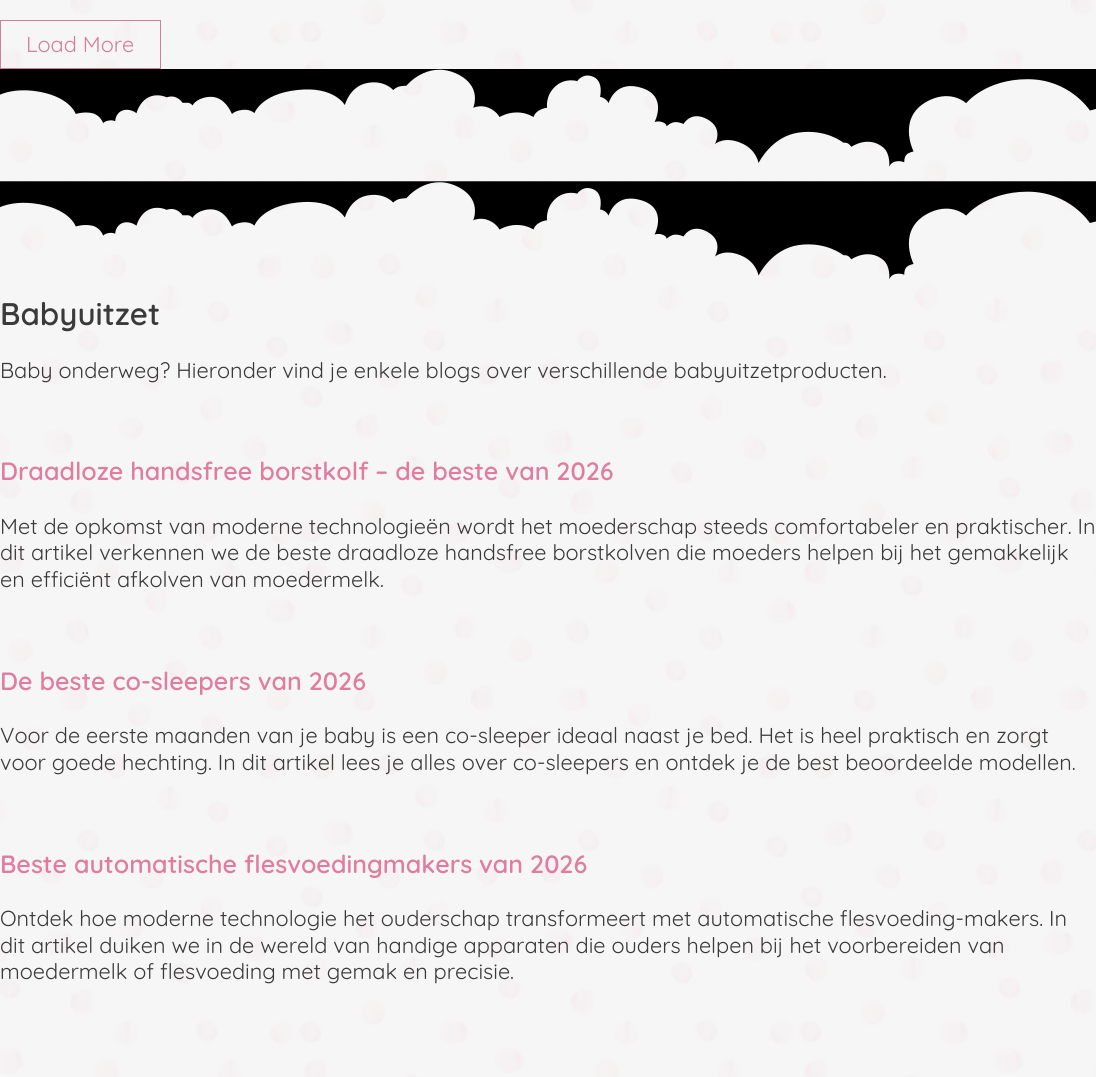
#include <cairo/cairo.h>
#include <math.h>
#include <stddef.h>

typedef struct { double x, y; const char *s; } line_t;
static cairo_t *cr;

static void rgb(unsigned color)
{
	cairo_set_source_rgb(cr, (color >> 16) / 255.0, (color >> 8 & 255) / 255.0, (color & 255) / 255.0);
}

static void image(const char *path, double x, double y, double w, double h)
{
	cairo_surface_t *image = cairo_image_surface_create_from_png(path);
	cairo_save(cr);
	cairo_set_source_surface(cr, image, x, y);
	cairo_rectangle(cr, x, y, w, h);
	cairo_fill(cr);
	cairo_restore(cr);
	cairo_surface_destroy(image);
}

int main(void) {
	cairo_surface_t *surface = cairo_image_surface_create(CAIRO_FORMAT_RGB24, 1096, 1077);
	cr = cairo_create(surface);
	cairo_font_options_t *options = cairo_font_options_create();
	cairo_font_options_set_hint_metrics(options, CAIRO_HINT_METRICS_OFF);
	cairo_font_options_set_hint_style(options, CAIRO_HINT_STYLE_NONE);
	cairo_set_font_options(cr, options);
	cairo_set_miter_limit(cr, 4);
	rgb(0xffffff);
	cairo_paint(cr);
	image("img/1.png", 0, 0, 1096, 1077);
	cairo_rectangle(cr, 0.5, 20.5, 160, 48);
	cairo_set_source_rgba(cr, 0.769, 0.31, 0.455, 0.71);
	cairo_set_line_width(cr, 1);
	cairo_stroke(cr);
	image("img/2.png", 0, 69, 1096, 98);
	image("img/3.png", 0, 181, 1096, 99);
	cairo_select_font_face(cr, "Quicksand", CAIRO_FONT_SLANT_NORMAL, CAIRO_FONT_WEIGHT_NORMAL);
	cairo_set_font_size(cr, 21.65);
	rgb(0xd27f9a);
	cairo_move_to(cr, 26, 52);
	cairo_show_text(cr, "Load More");
	cairo_select_font_face(cr, "Quicksand SemiBold", CAIRO_FONT_SLANT_NORMAL, CAIRO_FONT_WEIGHT_NORMAL);
	cairo_set_font_size(cr, 31.25);
	rgb(0x3a3a3a);
	cairo_move_to(cr, 0, 325);
	cairo_show_text(cr, "Babyuitzet");
	cairo_select_font_face(cr, "Quicksand", CAIRO_FONT_SLANT_NORMAL, CAIRO_FONT_WEIGHT_NORMAL);
	cairo_set_font_size(cr, 21.65);
	cairo_move_to(cr, 0, 378);
	cairo_show_text(cr, "Baby onderweg? Hieronder vind je enkele blogs over verschillende babyuitzetproducten.");
	cairo_select_font_face(cr, "Quicksand SemiBold", CAIRO_FONT_SLANT_NORMAL, CAIRO_FONT_WEIGHT_NORMAL);
	cairo_set_font_size(cr, 25);
	rgb(0xdf7c9f);
	cairo_move_to(cr, 0, 480);
	cairo_show_text(cr, "Draadloze handsfree borstkolf – de beste van 2026");
	cairo_select_font_face(cr, "Quicksand", CAIRO_FONT_SLANT_NORMAL, CAIRO_FONT_WEIGHT_NORMAL);
	cairo_set_font_size(cr, 21.65);
	rgb(0x3a3a3a);
	{
		static const line_t items[] = {
			{0, 534, "Met de opkomst van moderne technologieën wordt het moederschap steeds comfortabeler en praktischer. In"},
			{0, 560, "dit artikel verkennen we de beste draadloze handsfree borstkolven die moeders helpen bij het gemakkelijk"},
			{0, 587, "en efficiënt afkolven van moedermelk."},
		};
		for (size_t i = 0; i < sizeof items / sizeof *items; i++) {
			cairo_move_to(cr, items[i].x, items[i].y);
			cairo_show_text(cr, items[i].s);
		}
	}
	cairo_select_font_face(cr, "Quicksand SemiBold", CAIRO_FONT_SLANT_NORMAL, CAIRO_FONT_WEIGHT_NORMAL);
	cairo_set_font_size(cr, 25);
	rgb(0xdf7c9f);
	cairo_move_to(cr, 0, 690);
	cairo_show_text(cr, "De beste co-sleepers van 2026");
	cairo_select_font_face(cr, "Quicksand", CAIRO_FONT_SLANT_NORMAL, CAIRO_FONT_WEIGHT_NORMAL);
	cairo_set_font_size(cr, 21.65);
	rgb(0x3a3a3a);
	cairo_move_to(cr, 0, 743);
	cairo_show_text(cr, "Voor de eerste maanden van je baby is een co-sleeper ideaal naast je bed. Het is heel praktisch en zorgt");
	cairo_move_to(cr, 0, 770);
	cairo_show_text(cr, "voor goede hechting. In dit artikel lees je alles over co-sleepers en ontdek je de best beoordeelde modellen.");
	cairo_select_font_face(cr, "Quicksand SemiBold", CAIRO_FONT_SLANT_NORMAL, CAIRO_FONT_WEIGHT_NORMAL);
	cairo_set_font_size(cr, 25);
	rgb(0xdf7c9f);
	cairo_move_to(cr, 0, 873);
	cairo_show_text(cr, "Beste automatische flesvoedingmakers van 2026");
	cairo_select_font_face(cr, "Quicksand", CAIRO_FONT_SLANT_NORMAL, CAIRO_FONT_WEIGHT_NORMAL);
	cairo_set_font_size(cr, 21.65);
	rgb(0x3a3a3a);
	{
		static const line_t items[] = {
			{0, 926, "Ontdek hoe moderne technologie het ouderschap transformeert met automatische flesvoeding-makers. In"},
			{0, 953, "dit artikel duiken we in de wereld van handige apparaten die ouders helpen bij het voorbereiden van"},
			{0, 979, "moedermelk of flesvoeding met gemak en precisie."},
		};
		for (size_t i = 0; i < sizeof items / sizeof *items; i++) {
			cairo_move_to(cr, items[i].x, items[i].y);
			cairo_show_text(cr, items[i].s);
		}
	}
	cairo_surface_write_to_png(surface, "page.png");
	cairo_font_options_destroy(options);
	cairo_destroy(cr);
	cairo_surface_destroy(surface);
	return 0;
}
